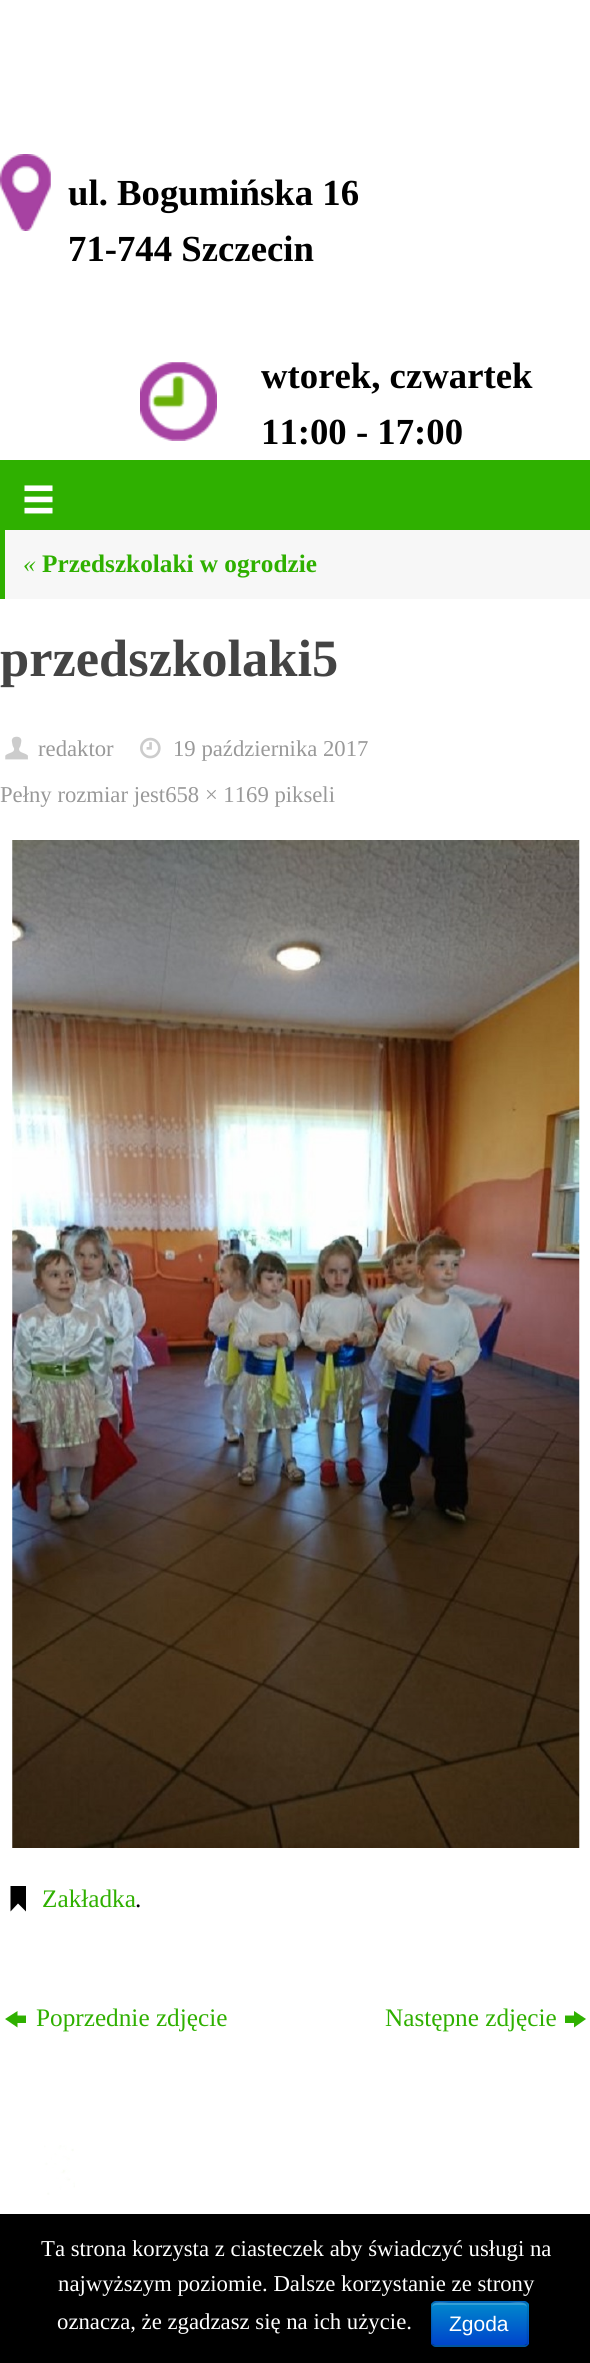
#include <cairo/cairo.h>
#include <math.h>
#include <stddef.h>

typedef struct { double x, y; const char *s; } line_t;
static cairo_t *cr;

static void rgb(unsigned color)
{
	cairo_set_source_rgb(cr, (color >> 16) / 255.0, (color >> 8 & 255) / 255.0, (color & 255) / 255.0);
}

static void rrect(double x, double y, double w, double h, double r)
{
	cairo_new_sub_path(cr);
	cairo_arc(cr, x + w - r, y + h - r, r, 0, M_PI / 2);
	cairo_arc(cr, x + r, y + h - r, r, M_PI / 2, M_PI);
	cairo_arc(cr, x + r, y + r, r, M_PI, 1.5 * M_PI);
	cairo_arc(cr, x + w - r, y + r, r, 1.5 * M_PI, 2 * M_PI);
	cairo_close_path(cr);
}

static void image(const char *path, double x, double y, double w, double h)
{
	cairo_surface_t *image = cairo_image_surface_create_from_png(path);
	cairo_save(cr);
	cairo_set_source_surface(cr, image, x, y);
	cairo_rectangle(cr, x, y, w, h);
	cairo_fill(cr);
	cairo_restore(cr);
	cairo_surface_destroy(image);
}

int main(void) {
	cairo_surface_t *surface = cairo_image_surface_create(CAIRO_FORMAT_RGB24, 590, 2363);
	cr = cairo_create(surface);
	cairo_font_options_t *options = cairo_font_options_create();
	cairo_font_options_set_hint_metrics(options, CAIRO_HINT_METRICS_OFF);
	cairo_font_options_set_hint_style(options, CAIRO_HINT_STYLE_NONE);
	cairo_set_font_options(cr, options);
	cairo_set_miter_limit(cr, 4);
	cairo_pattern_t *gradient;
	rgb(0xffffff);
	cairo_paint(cr);
	image("img/1.png", 0, 154, 51, 77);
	image("img/2.png", 140, 362, 77, 79);
	rgb(0x2fb000);
	cairo_rectangle(cr, 0, 460, 590, 70);
	cairo_fill(cr);
	image("img/3.png", 24, 485, 29, 29);
	rgb(0xf7f7f7);
	cairo_rectangle(cr, 5, 530, 585, 69);
	cairo_fill(cr);
	rgb(0x2fb000);
	cairo_rectangle(cr, 0, 530, 5, 69);
	cairo_fill(cr);
	image("img/4.png", 5, 736, 23, 24);
	image("img/5.png", 140, 737, 21, 22);
	image("img/6.png", 12, 840, 568, 1008);
	rgb(0x000000);
	cairo_new_path(cr);
	cairo_move_to(cr, 10.5, 1909);
	cairo_line_to(cr, 10.5, 1886);
	cairo_line_to(cr, 26, 1886);
	cairo_line_to(cr, 26, 1911.5);
	cairo_line_to(cr, 18, 1903.5);
	cairo_line_to(cr, 10.5, 1911.5);
	cairo_close_path(cr);
	cairo_fill(cr);
	rgb(0x2fb000);
	cairo_new_path(cr);
	cairo_move_to(cr, 5, 2019);
	cairo_line_to(cr, 17.5, 2011);
	cairo_line_to(cr, 17.5, 2015.5);
	cairo_line_to(cr, 26, 2015.5);
	cairo_line_to(cr, 26, 2023);
	cairo_line_to(cr, 17.5, 2023);
	cairo_line_to(cr, 17.5, 2027.5);
	cairo_close_path(cr);
	cairo_fill(cr);
	cairo_new_path(cr);
	cairo_move_to(cr, 565, 2023);
	cairo_line_to(cr, 565, 2015.5);
	cairo_line_to(cr, 574, 2015.5);
	cairo_line_to(cr, 574, 2011);
	cairo_line_to(cr, 586, 2019);
	cairo_line_to(cr, 574, 2027.5);
	cairo_line_to(cr, 574, 2023);
	cairo_close_path(cr);
	cairo_fill(cr);
	image("img/7.png", 44, 2145, 31, 50);
	rgb(0x000000);
	cairo_rectangle(cr, 0, 2214, 590, 149);
	cairo_fill(cr);
	rgb(0x006dcc);
	rrect(431, 2301, 98, 46, 5);
	cairo_fill(cr);
	cairo_save(cr);
	rrect(431, 2301, 98, 46, 5);
	cairo_clip(cr);
	gradient = cairo_pattern_create_linear(480, 2303, 480, 2345);
	cairo_pattern_add_color_stop_rgba(gradient, 0, 0, 0.533, 0.8, 1);
	cairo_pattern_add_color_stop_rgba(gradient, 1, 0, 0.267, 0.8, 1);
	cairo_set_source(cr, gradient);
	cairo_pattern_destroy(gradient);
	cairo_rectangle(cr, 431, 2303, 98, 42);
	cairo_fill(cr);
	cairo_restore(cr);
	cairo_set_source_rgba(cr, 1, 1, 1, 0.2);
	cairo_new_path(cr);
	cairo_move_to(cr, 436, 2305);
	cairo_line_to(cr, 523, 2305);
	cairo_curve_to(cr, 525, 2305, 527, 2306, 527, 2308);
	cairo_curve_to(cr, 527, 2299, 513, 2303, 508, 2303);
	cairo_line_to(cr, 450, 2303);
	cairo_curve_to(cr, 446, 2303, 432, 2299, 432, 2308);
	cairo_curve_to(cr, 432, 2306, 434, 2305, 436, 2305);
	cairo_close_path(cr);
	cairo_fill(cr);
	cairo_new_path(cr);
	cairo_move_to(cr, 526.5, 2344.5);
	cairo_curve_to(cr, 525.5, 2345.5, 524.5, 2346, 523, 2346);
	cairo_line_to(cr, 436, 2346);
	cairo_curve_to(cr, 434.5, 2346, 433.5, 2345.5, 432.5, 2344.5);
	cairo_set_source_rgba(cr, 0, 0, 0, 0.25);
	cairo_set_line_width(cr, 1.8);
	cairo_stroke(cr);
	cairo_new_path(cr);
	cairo_move_to(cr, 432.5, 2344.5);
	cairo_curve_to(cr, 430.5, 2342.5, 431.5, 2338, 431.5, 2335.5);
	cairo_line_to(cr, 431.5, 2324);
	cairo_curve_to(cr, 431.5, 2300, 427, 2302, 450.5, 2302);
	cairo_line_to(cr, 508.5, 2302);
	cairo_curve_to(cr, 532, 2302, 527.5, 2300, 527.5, 2324);
	cairo_line_to(cr, 527.5, 2335.5);
	cairo_curve_to(cr, 527.5, 2338, 528.5, 2342.5, 526.5, 2344.5);
	cairo_set_source_rgba(cr, 0, 0, 0, 0.1);
	cairo_stroke(cr);
	cairo_select_font_face(cr, "Liberation Serif", CAIRO_FONT_SLANT_NORMAL, CAIRO_FONT_WEIGHT_BOLD);
	cairo_set_font_size(cr, 36.75);
	rgb(0x000000);
	{
		static const line_t items[] = {
			{68, 205, "ul. Bogumińska 16"},
			{68, 261, "71-744 Szczecin"},
			{261, 388, "wtorek, czwartek"},
			{261, 444, "11:00 - 17:00"},
		};
		for (size_t i = 0; i < sizeof items / sizeof *items; i++) {
			cairo_move_to(cr, items[i].x, items[i].y);
			cairo_show_text(cr, items[i].s);
		}
	}
	cairo_select_font_face(cr, "Liberation Serif", CAIRO_FONT_SLANT_ITALIC, CAIRO_FONT_WEIGHT_NORMAL);
	cairo_set_font_size(cr, 25.25);
	rgb(0x2fb000);
	cairo_move_to(cr, 23, 572);
	cairo_show_text(cr, "«");
	cairo_select_font_face(cr, "Liberation Serif", CAIRO_FONT_SLANT_NORMAL, CAIRO_FONT_WEIGHT_BOLD);
	cairo_move_to(cr, 42, 572);
	cairo_show_text(cr, "Przedszkolaki w ogrodzie");
	cairo_set_font_size(cr, 52.5);
	rgb(0x444444);
	cairo_move_to(cr, 0, 676);
	cairo_show_text(cr, "przedszkolaki5");
	cairo_select_font_face(cr, "Liberation Serif", CAIRO_FONT_SLANT_NORMAL, CAIRO_FONT_WEIGHT_NORMAL);
	cairo_set_font_size(cr, 22.7);
	rgb(0x999999);
	{
		static const line_t items[] = {
			{38, 756, "redaktor"},
			{173, 756, "19 października 2017"},
			{0, 802, "Pełny rozmiar jest658 × 1169 pikseli"},
		};
		for (size_t i = 0; i < sizeof items / sizeof *items; i++) {
			cairo_move_to(cr, items[i].x, items[i].y);
			cairo_show_text(cr, items[i].s);
		}
	}
	cairo_set_font_size(cr, 25.25);
	rgb(0x2fb000);
	cairo_move_to(cr, 42, 1907);
	cairo_show_text(cr, "Zakładka");
	rgb(0x000000);
	cairo_move_to(cr, 135, 1907);
	cairo_show_text(cr, ".");
	rgb(0x2fb000);
	cairo_move_to(cr, 36, 2026);
	cairo_show_text(cr, "Poprzednie zdjęcie");
	cairo_move_to(cr, 385, 2026);
	cairo_show_text(cr, "Następne zdjęcie");
	cairo_set_font_size(cr, 22.75);
	rgb(0xffffff);
	{
		static const line_t items[] = {
			{41, 2256, "Ta strona korzysta z ciasteczek aby świadczyć usługi na"},
			{58, 2291, "najwyższym poziomie. Dalsze korzystanie ze strony"},
			{57, 2329, "oznacza, że zgadzasz się na ich użycie."},
		};
		for (size_t i = 0; i < sizeof items / sizeof *items; i++) {
			cairo_move_to(cr, items[i].x, items[i].y);
			cairo_show_text(cr, items[i].s);
		}
	}
	cairo_select_font_face(cr, "Liberation Sans", CAIRO_FONT_SLANT_NORMAL, CAIRO_FONT_WEIGHT_NORMAL);
	cairo_set_font_size(cr, 21);
	cairo_move_to(cr, 449, 2331);
	cairo_show_text(cr, "Zgoda");
	cairo_surface_write_to_png(surface, "page.png");
	cairo_font_options_destroy(options);
	cairo_destroy(cr);
	cairo_surface_destroy(surface);
	return 0;
}
